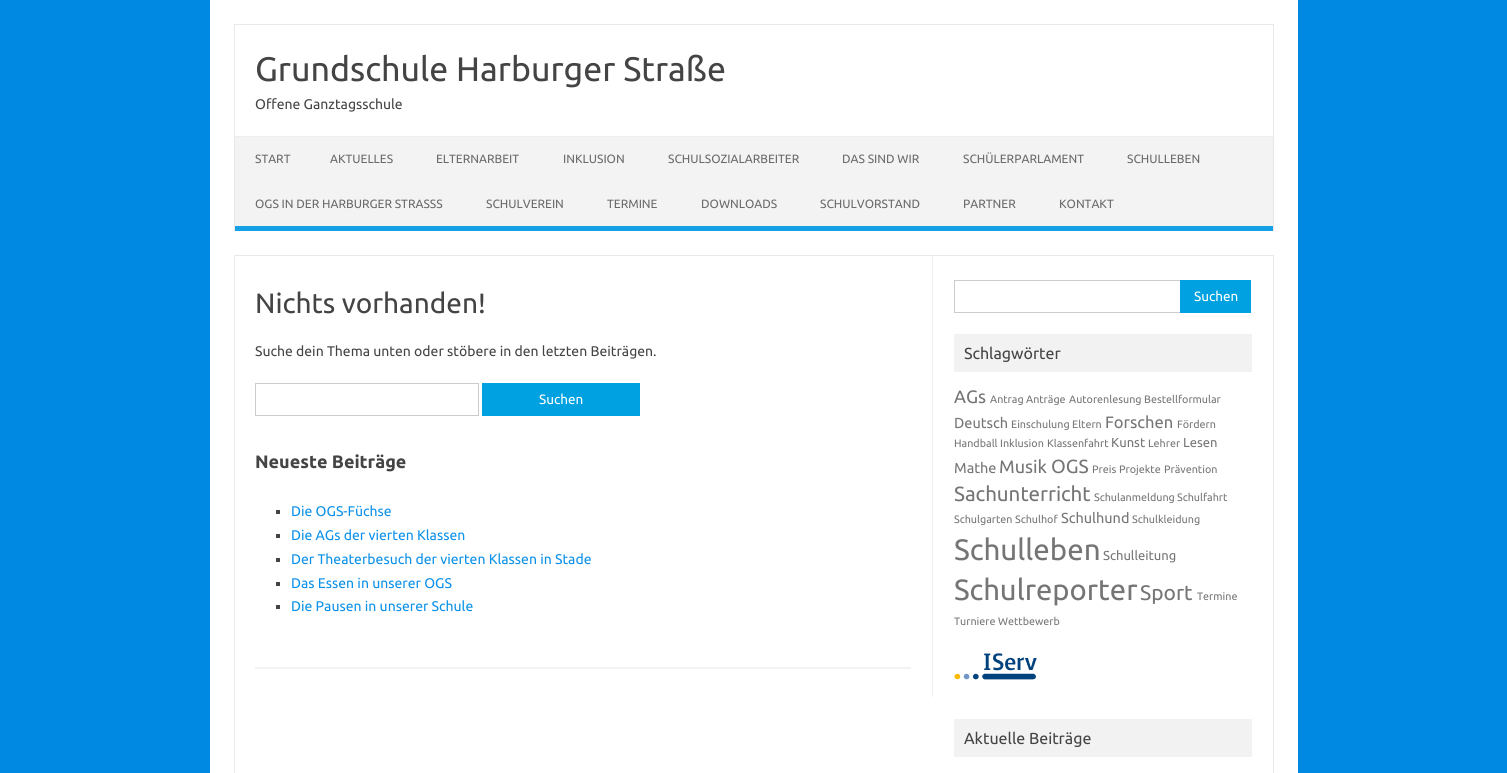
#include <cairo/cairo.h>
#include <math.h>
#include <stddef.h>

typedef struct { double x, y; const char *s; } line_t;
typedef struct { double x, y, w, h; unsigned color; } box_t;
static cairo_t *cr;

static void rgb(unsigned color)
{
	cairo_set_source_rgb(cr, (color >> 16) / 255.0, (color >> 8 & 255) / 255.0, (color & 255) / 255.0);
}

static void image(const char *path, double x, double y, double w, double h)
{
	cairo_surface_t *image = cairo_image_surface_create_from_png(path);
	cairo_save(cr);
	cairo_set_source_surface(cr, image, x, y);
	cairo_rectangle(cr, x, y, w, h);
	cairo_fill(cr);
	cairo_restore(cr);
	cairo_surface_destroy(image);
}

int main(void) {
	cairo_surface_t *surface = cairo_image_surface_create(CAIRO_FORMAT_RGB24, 1507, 773);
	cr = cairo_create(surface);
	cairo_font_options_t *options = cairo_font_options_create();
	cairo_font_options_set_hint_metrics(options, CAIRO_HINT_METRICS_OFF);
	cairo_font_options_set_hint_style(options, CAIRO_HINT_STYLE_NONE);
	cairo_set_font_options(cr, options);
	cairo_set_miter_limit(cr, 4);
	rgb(0x0089e2);
	cairo_paint(cr);
	{
		static const box_t items[] = {
			{210, 0, 1088, 773, 0xffffff},
			{234, 24, 1040, 1, 0xe9e9e9},
			{1273, 24, 1, 207, 0xe9e9e9},
			{234, 24, 1, 207, 0xe9e9e9},
			{235, 137, 1038, 89, 0xf3f3f3},
			{235, 136, 1038, 1, 0xededed},
			{235, 226, 1038, 5, 0x16a1e7},
		};
		for (size_t i = 0; i < sizeof items / sizeof *items; i++) {
			rgb(items[i].color);
			cairo_rectangle(cr, items[i].x, items[i].y, items[i].w, items[i].h);
			cairo_fill(cr);
		}
	}
	cairo_rectangle(cr, 234.5, 255.5, 1039, 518);
	rgb(0xe9e9e9);
	cairo_set_line_width(cr, 1);
	cairo_stroke(cr);
	rgb(0xf1f1f1);
	cairo_rectangle(cr, 932, 256, 1, 441);
	cairo_fill(cr);
	rgb(0xf3f3f3);
	cairo_rectangle(cr, 255, 667, 656, 2);
	cairo_fill(cr);
	cairo_rectangle(cr, 255.5, 383.5, 223, 32);
	rgb(0xcccccc);
	cairo_stroke(cr);
	{
		static const box_t items[] = {
			{482, 383, 158, 33, 0x00a1e0},
			{276, 510, 4, 4, 0x444444},
			{276, 534, 4, 4, 0x444444},
			{276, 558, 4, 4, 0x444444},
			{276, 582, 4, 4, 0x444444},
			{276, 605, 4, 4, 0x444444},
		};
		for (size_t i = 0; i < sizeof items / sizeof *items; i++) {
			rgb(items[i].color);
			cairo_rectangle(cr, items[i].x, items[i].y, items[i].w, items[i].h);
			cairo_fill(cr);
		}
	}
	cairo_rectangle(cr, 954.5, 280.5, 226, 32);
	rgb(0xcccccc);
	cairo_stroke(cr);
	rgb(0x00a1e0);
	cairo_rectangle(cr, 1180, 280, 71, 33);
	cairo_fill(cr);
	rgb(0xf2f2f2);
	cairo_rectangle(cr, 954, 334, 298, 38);
	cairo_fill(cr);
	image("img/1.png", 954, 653, 83, 27);
	cairo_rectangle(cr, 954, 719, 298, 38);
	cairo_fill(cr);
	cairo_select_font_face(cr, "Ubuntu", CAIRO_FONT_SLANT_NORMAL, CAIRO_FONT_WEIGHT_NORMAL);
	cairo_set_font_size(cr, 34);
	rgb(0x444444);
	cairo_move_to(cr, 255, 81);
	cairo_show_text(cr, "Grundschule Harburger Straße");
	cairo_set_font_size(cr, 14);
	cairo_move_to(cr, 255, 109);
	cairo_show_text(cr, "Offene Ganztagsschule");
	cairo_set_font_size(cr, 12);
	rgb(0x6a6a6a);
	{
		static const line_t items[] = {
			{255, 163, "START"},
			{330, 163, "AKTUELLES"},
			{436, 163, "ELTERNARBEIT"},
			{563, 163, "INKLUSION"},
			{668, 163, "SCHULSOZIALARBEITER"},
			{842, 163, "DAS SIND WIR"},
			{963, 163, "SCHÜLERPARLAMENT"},
			{1127, 163, "SCHULLEBEN"},
			{255, 208, "OGS IN DER HARBURGER STRASSS"},
			{486, 208, "SCHULVEREIN"},
			{607, 208, "TERMINE"},
			{701, 208, "DOWNLOADS"},
			{820, 208, "SCHULVORSTAND"},
			{963, 208, "PARTNER"},
			{1059, 208, "KONTAKT"},
		};
		for (size_t i = 0; i < sizeof items / sizeof *items; i++) {
			cairo_move_to(cr, items[i].x, items[i].y);
			cairo_show_text(cr, items[i].s);
		}
	}
	cairo_set_font_size(cr, 28);
	rgb(0x444444);
	cairo_move_to(cr, 255, 313);
	cairo_show_text(cr, "Nichts vorhanden!");
	cairo_set_font_size(cr, 14);
	cairo_move_to(cr, 255, 356);
	cairo_show_text(cr, "Suche dein Thema unten oder stöbere in den letzten Beiträgen.");
	cairo_set_font_size(cr, 13.5);
	rgb(0xffffff);
	cairo_move_to(cr, 539, 404);
	cairo_show_text(cr, "Suchen");
	cairo_select_font_face(cr, "Ubuntu", CAIRO_FONT_SLANT_NORMAL, CAIRO_FONT_WEIGHT_BOLD);
	cairo_set_font_size(cr, 18);
	rgb(0x444444);
	cairo_move_to(cr, 255, 468);
	cairo_show_text(cr, "Neueste Beiträge");
	cairo_select_font_face(cr, "Ubuntu", CAIRO_FONT_SLANT_NORMAL, CAIRO_FONT_WEIGHT_NORMAL);
	cairo_set_font_size(cr, 14);
	rgb(0x0b91ea);
	{
		static const line_t items[] = {
			{291, 516, "Die OGS-Füchse"},
			{291, 540, "Die AGs der vierten Klassen"},
			{291, 564, "Der Theaterbesuch der vierten Klassen in Stade"},
			{291, 588, "Das Essen in unserer OGS"},
			{291, 611, "Die Pausen in unserer Schule"},
		};
		for (size_t i = 0; i < sizeof items / sizeof *items; i++) {
			cairo_move_to(cr, items[i].x, items[i].y);
			cairo_show_text(cr, items[i].s);
		}
	}
	cairo_set_font_size(cr, 13.5);
	rgb(0xffffff);
	cairo_move_to(cr, 1194, 301);
	cairo_show_text(cr, "Suchen");
	cairo_set_font_size(cr, 16);
	rgb(0x444444);
	cairo_move_to(cr, 964, 359);
	cairo_show_text(cr, "Schlagwörter");
	cairo_set_font_size(cr, 18);
	rgb(0x757575);
	cairo_move_to(cr, 954, 403);
	cairo_show_text(cr, "AGs");
	cairo_set_font_size(cr, 10.75);
	{
		static const line_t items[] = {
			{990, 403, "Antrag"},
			{1026, 403, "Anträge"},
			{1069, 403, "Autorenlesung"},
			{1144, 403, "Bestellformular"},
		};
		for (size_t i = 0; i < sizeof items / sizeof *items; i++) {
			cairo_move_to(cr, items[i].x, items[i].y);
			cairo_show_text(cr, items[i].s);
		}
	}
	cairo_set_font_size(cr, 14.5);
	cairo_move_to(cr, 954, 428);
	cairo_show_text(cr, "Deutsch");
	cairo_set_font_size(cr, 10.75);
	cairo_move_to(cr, 1011, 428);
	cairo_show_text(cr, "Einschulung");
	cairo_move_to(cr, 1072, 428);
	cairo_show_text(cr, "Eltern");
	cairo_set_font_size(cr, 16.5);
	cairo_move_to(cr, 1105, 428);
	cairo_show_text(cr, "Forschen");
	cairo_set_font_size(cr, 10.75);
	{
		static const line_t items[] = {
			{1177, 428, "Fördern"},
			{954, 447, "Handball"},
			{1000, 447, "Inklusion"},
			{1047, 447, "Klassenfahrt"},
		};
		for (size_t i = 0; i < sizeof items / sizeof *items; i++) {
			cairo_move_to(cr, items[i].x, items[i].y);
			cairo_show_text(cr, items[i].s);
		}
	}
	cairo_set_font_size(cr, 13);
	cairo_move_to(cr, 1111, 447);
	cairo_show_text(cr, "Kunst");
	cairo_set_font_size(cr, 10.75);
	cairo_move_to(cr, 1148, 447);
	cairo_show_text(cr, "Lehrer");
	cairo_set_font_size(cr, 13);
	cairo_move_to(cr, 1183, 447);
	cairo_show_text(cr, "Lesen");
	cairo_set_font_size(cr, 14.5);
	cairo_move_to(cr, 954, 473);
	cairo_show_text(cr, "Mathe");
	cairo_set_font_size(cr, 18);
	cairo_move_to(cr, 999, 473);
	cairo_show_text(cr, "Musik");
	cairo_set_font_size(cr, 19);
	cairo_move_to(cr, 1051, 473);
	cairo_show_text(cr, "OGS");
	cairo_set_font_size(cr, 10.75);
	{
		static const line_t items[] = {
			{1092, 473, "Preis"},
			{1119, 473, "Projekte"},
			{1164, 473, "Prävention"},
		};
		for (size_t i = 0; i < sizeof items / sizeof *items; i++) {
			cairo_move_to(cr, items[i].x, items[i].y);
			cairo_show_text(cr, items[i].s);
		}
	}
	cairo_set_font_size(cr, 20.5);
	cairo_move_to(cr, 954, 501);
	cairo_show_text(cr, "Sachunterricht");
	cairo_set_font_size(cr, 10.75);
	{
		static const line_t items[] = {
			{1094, 501, "Schulanmeldung"},
			{1177, 501, "Schulfahrt"},
			{954, 523, "Schulgarten"},
			{1015, 523, "Schulhof"},
		};
		for (size_t i = 0; i < sizeof items / sizeof *items; i++) {
			cairo_move_to(cr, items[i].x, items[i].y);
			cairo_show_text(cr, items[i].s);
		}
	}
	cairo_set_font_size(cr, 14.5);
	cairo_move_to(cr, 1061, 523);
	cairo_show_text(cr, "Schulhund");
	cairo_set_font_size(cr, 10.75);
	cairo_move_to(cr, 1132, 523);
	cairo_show_text(cr, "Schulkleidung");
	cairo_set_font_size(cr, 29.5);
	cairo_move_to(cr, 954, 560);
	cairo_show_text(cr, "Schulleben");
	cairo_set_font_size(cr, 13);
	cairo_move_to(cr, 1103, 560);
	cairo_show_text(cr, "Schulleitung");
	cairo_set_font_size(cr, 29.25);
	cairo_move_to(cr, 954, 600);
	cairo_show_text(cr, "Schulreporter");
	cairo_set_font_size(cr, 21);
	cairo_move_to(cr, 1140, 600);
	cairo_show_text(cr, "Sport");
	cairo_set_font_size(cr, 10.75);
	{
		static const line_t items[] = {
			{1197, 600, "Termine"},
			{954, 625, "Turniere"},
			{998, 625, "Wettbewerb"},
		};
		for (size_t i = 0; i < sizeof items / sizeof *items; i++) {
			cairo_move_to(cr, items[i].x, items[i].y);
			cairo_show_text(cr, items[i].s);
		}
	}
	cairo_set_font_size(cr, 16);
	rgb(0x444444);
	cairo_move_to(cr, 964, 744);
	cairo_show_text(cr, "Aktuelle Beiträge");
	cairo_surface_write_to_png(surface, "page.png");
	cairo_font_options_destroy(options);
	cairo_destroy(cr);
	cairo_surface_destroy(surface);
	return 0;
}
